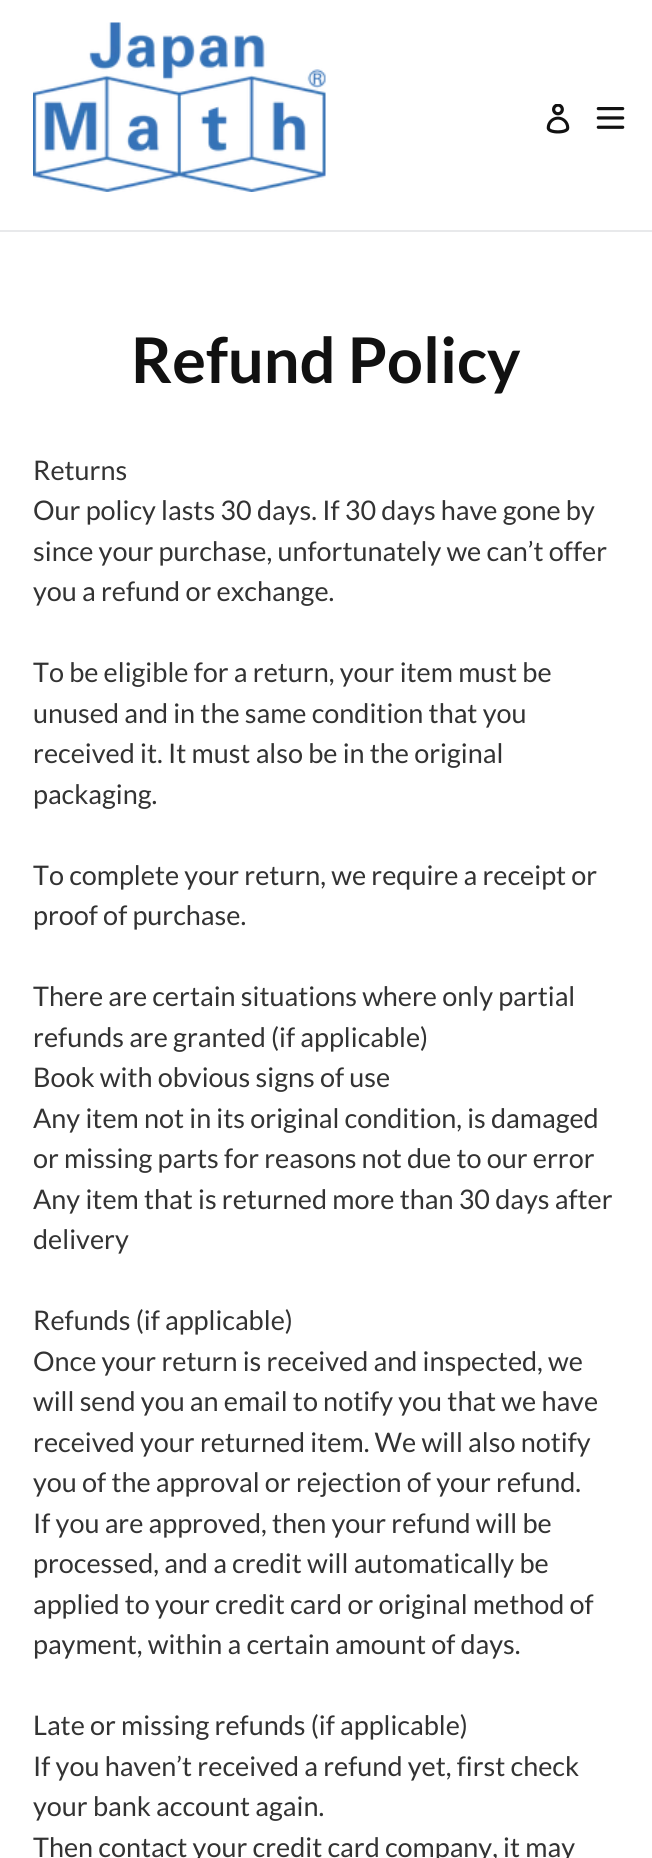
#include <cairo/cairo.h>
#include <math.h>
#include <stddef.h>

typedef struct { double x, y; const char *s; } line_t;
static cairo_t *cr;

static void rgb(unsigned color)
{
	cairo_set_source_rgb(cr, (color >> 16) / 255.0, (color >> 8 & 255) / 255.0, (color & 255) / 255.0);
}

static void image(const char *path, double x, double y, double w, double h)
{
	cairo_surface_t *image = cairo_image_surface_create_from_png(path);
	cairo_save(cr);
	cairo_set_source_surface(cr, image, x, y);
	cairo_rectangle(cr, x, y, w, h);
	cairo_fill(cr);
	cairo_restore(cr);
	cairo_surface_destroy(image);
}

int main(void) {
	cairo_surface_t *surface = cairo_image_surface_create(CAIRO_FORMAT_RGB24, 652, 1858);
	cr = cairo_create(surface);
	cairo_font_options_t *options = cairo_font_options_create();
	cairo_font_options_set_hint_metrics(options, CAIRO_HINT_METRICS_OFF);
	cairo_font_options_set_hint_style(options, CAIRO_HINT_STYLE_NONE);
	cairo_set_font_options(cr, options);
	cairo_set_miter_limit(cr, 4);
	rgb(0xffffff);
	cairo_paint(cr);
	rgb(0xe8e9eb);
	cairo_rectangle(cr, 0, 230, 652, 2);
	cairo_fill(cr);
	image("img/1.png", 33, 22, 293, 170);
	image("img/2.png", 546, 104, 24, 30);
	image("img/3.png", 596, 107, 29, 22);
	cairo_select_font_face(cr, "Lato", CAIRO_FONT_SLANT_NORMAL, CAIRO_FONT_WEIGHT_BOLD);
	cairo_set_font_size(cr, 63);
	rgb(0x111111);
	cairo_move_to(cr, 131, 383);
	cairo_show_text(cr, "Refund Policy");
	cairo_select_font_face(cr, "Lato", CAIRO_FONT_SLANT_NORMAL, CAIRO_FONT_WEIGHT_NORMAL);
	cairo_set_font_size(cr, 27);
	rgb(0x333333);
	{
		static const line_t items[] = {
			{33, 480, "Returns"},
			{33, 520, "Our policy lasts 30 days. If 30 days have gone by"},
			{33, 561, "since your purchase, unfortunately we can’t offer"},
			{33, 601, "you a refund or exchange."},
			{33, 682, "To be eligible for a return, your item must be"},
			{33, 723, "unused and in the same condition that you"},
			{33, 763, "received it. It must also be in the original"},
			{33, 804, "packaging."},
			{33, 885, "To complete your return, we require a receipt or"},
			{33, 925, "proof of purchase."},
			{33, 1006, "There are certain situations where only partial"},
			{33, 1047, "refunds are granted (if applicable)"},
			{33, 1087, "Book with obvious signs of use"},
			{33, 1128, "Any item not in its original condition, is damaged"},
			{33, 1168, "or missing parts for reasons not due to our error"},
			{33, 1209, "Any item that is returned more than 30 days after"},
			{33, 1249, "delivery"},
			{33, 1330, "Refunds (if applicable)"},
			{33, 1371, "Once your return is received and inspected, we"},
			{33, 1411, "will send you an email to notify you that we have"},
			{33, 1452, "received your returned item. We will also notify"},
			{33, 1492, "you of the approval or rejection of your refund."},
			{33, 1533, "If you are approved, then your refund will be"},
			{33, 1573, "processed, and a credit will automatically be"},
			{33, 1614, "applied to your credit card or original method of"},
			{33, 1654, "payment, within a certain amount of days."},
			{33, 1735, "Late or missing refunds (if applicable)"},
			{33, 1776, "If you haven’t received a refund yet, first check"},
			{33, 1816, "your bank account again."},
			{33, 1857, "Then contact your credit card company, it may"},
		};
		for (size_t i = 0; i < sizeof items / sizeof *items; i++) {
			cairo_move_to(cr, items[i].x, items[i].y);
			cairo_show_text(cr, items[i].s);
		}
	}
	cairo_surface_write_to_png(surface, "page.png");
	cairo_font_options_destroy(options);
	cairo_destroy(cr);
	cairo_surface_destroy(surface);
	return 0;
}
